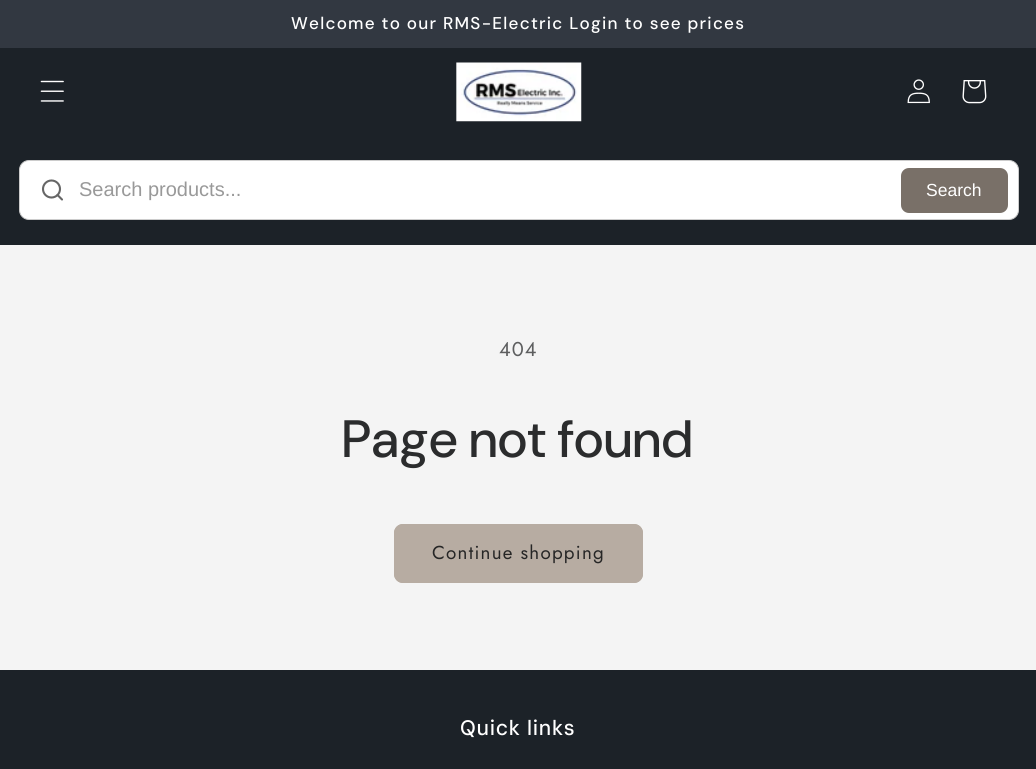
#include <cairo/cairo.h>
#include <math.h>
#include <stddef.h>

static cairo_t *cr;

static void rgb(unsigned color)
{
	cairo_set_source_rgb(cr, (color >> 16) / 255.0, (color >> 8 & 255) / 255.0, (color & 255) / 255.0);
}

static void tracked(double x, double y, const char *s, double letter, double word)
{
	cairo_move_to(cr, x, y);
	while (*s) {
		char ch[5] = {0};
		int n = 0;
		do ch[n++] = *s++; while ((*s & 0xC0) == 0x80);
		cairo_show_text(cr, ch);
		cairo_rel_move_to(cr, letter + word * (*ch == ' '), 0);
	}
}

static void rrect(double x, double y, double w, double h, double r)
{
	cairo_new_sub_path(cr);
	cairo_arc(cr, x + w - r, y + h - r, r, 0, M_PI / 2);
	cairo_arc(cr, x + r, y + h - r, r, M_PI / 2, M_PI);
	cairo_arc(cr, x + r, y + r, r, M_PI, 1.5 * M_PI);
	cairo_arc(cr, x + w - r, y + r, r, 1.5 * M_PI, 2 * M_PI);
	cairo_close_path(cr);
}

static void image(const char *path, double x, double y, double w, double h)
{
	cairo_surface_t *image = cairo_image_surface_create_from_png(path);
	cairo_save(cr);
	cairo_set_source_surface(cr, image, x, y);
	cairo_rectangle(cr, x, y, w, h);
	cairo_fill(cr);
	cairo_restore(cr);
	cairo_surface_destroy(image);
}

int main(void) {
	cairo_surface_t *surface = cairo_image_surface_create(CAIRO_FORMAT_RGB24, 1036, 769);
	cr = cairo_create(surface);
	cairo_font_options_t *options = cairo_font_options_create();
	cairo_font_options_set_hint_metrics(options, CAIRO_HINT_METRICS_OFF);
	cairo_font_options_set_hint_style(options, CAIRO_HINT_STYLE_NONE);
	cairo_set_font_options(cr, options);
	cairo_set_miter_limit(cr, 4);
	rgb(0xf4f4f4);
	cairo_paint(cr);
	rgb(0x323841);
	cairo_rectangle(cr, 0, 0, 1036, 48);
	cairo_fill(cr);
	rgb(0x1c2228);
	cairo_rectangle(cr, 0, 48, 1036, 197);
	cairo_fill(cr);
	image("img/1.png", 40, 80, 24, 22);
	image("img/2.png", 456, 62, 126, 60);
	image("img/3.png", 907, 79, 23, 25);
	image("img/4.png", 962, 80, 25, 24);
	rgb(0xffffff);
	rrect(19.5, 160.5, 999, 59, 9.5);
	cairo_fill_preserve(cr);
	rgb(0xcccccc);
	cairo_set_line_width(cr, 1);
	cairo_stroke(cr);
	cairo_arc(cr, 51.5, 189, 8.5, 0, 2 * M_PI);
	rgb(0x666666);
	cairo_set_line_width(cr, 2.1);
	cairo_stroke(cr);
	cairo_new_path(cr);
	cairo_move_to(cr, 62, 199.5);
	cairo_line_to(cr, 57.5, 195);
	cairo_set_line_cap(cr, CAIRO_LINE_CAP_ROUND);
	cairo_set_line_join(cr, CAIRO_LINE_JOIN_ROUND);
	cairo_stroke(cr);
	rgb(0x797068);
	rrect(901, 168, 107, 45, 8);
	cairo_fill(cr);
	rgb(0xb7aca2);
	rrect(394, 524, 249, 59, 9);
	cairo_fill(cr);
	rrect(394.5, 524.5, 248, 58, 8.5);
	cairo_set_line_width(cr, 1);
	cairo_set_line_cap(cr, CAIRO_LINE_CAP_BUTT);
	cairo_set_line_join(cr, CAIRO_LINE_JOIN_MITER);
	cairo_stroke(cr);
	rgb(0x1c2228);
	cairo_rectangle(cr, 0, 670, 1036, 99);
	cairo_fill(cr);
	cairo_select_font_face(cr, "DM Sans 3 Medium", CAIRO_FONT_SLANT_NORMAL, CAIRO_FONT_WEIGHT_NORMAL);
	cairo_set_font_size(cr, 17.05);
	rgb(0xffffff);
	tracked(291, 29, "Welcome to our RMS-Electric Login to see prices", 1.25, 0);
	cairo_select_font_face(cr, "Liberation Sans", CAIRO_FONT_SLANT_NORMAL, CAIRO_FONT_WEIGHT_NORMAL);
	cairo_set_font_size(cr, 20);
	rgb(0x999999);
	cairo_move_to(cr, 79, 196);
	cairo_show_text(cr, "Search products...");
	cairo_set_font_size(cr, 17.5);
	rgb(0xffffff);
	cairo_move_to(cr, 926, 196);
	cairo_show_text(cr, "Search");
	cairo_select_font_face(cr, "Jost", CAIRO_FONT_SLANT_NORMAL, CAIRO_FONT_WEIGHT_NORMAL);
	cairo_set_font_size(cr, 20);
	rgb(0x5d5e5f);
	tracked(499, 356, "404", 1, 0);
	cairo_select_font_face(cr, "DM Sans Medium", CAIRO_FONT_SLANT_NORMAL, CAIRO_FONT_WEIGHT_NORMAL);
	cairo_set_font_size(cr, 52.5);
	rgb(0x2b2c2d);
	tracked(342, 457, "Page not found", 0.75, 0);
	cairo_select_font_face(cr, "Jost", CAIRO_FONT_SLANT_NORMAL, CAIRO_FONT_WEIGHT_NORMAL);
	cairo_set_font_size(cr, 18.75);
	rgb(0x262626);
	tracked(432, 559, "Continue shopping", 1.25, 0);
	cairo_select_font_face(cr, "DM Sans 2 Medium", CAIRO_FONT_SLANT_NORMAL, CAIRO_FONT_WEIGHT_NORMAL);
	cairo_set_font_size(cr, 21);
	rgb(0xffffff);
	tracked(460, 735, "Quick links", 0.75, 0);
	cairo_surface_write_to_png(surface, "page.png");
	cairo_font_options_destroy(options);
	cairo_destroy(cr);
	cairo_surface_destroy(surface);
	return 0;
}
